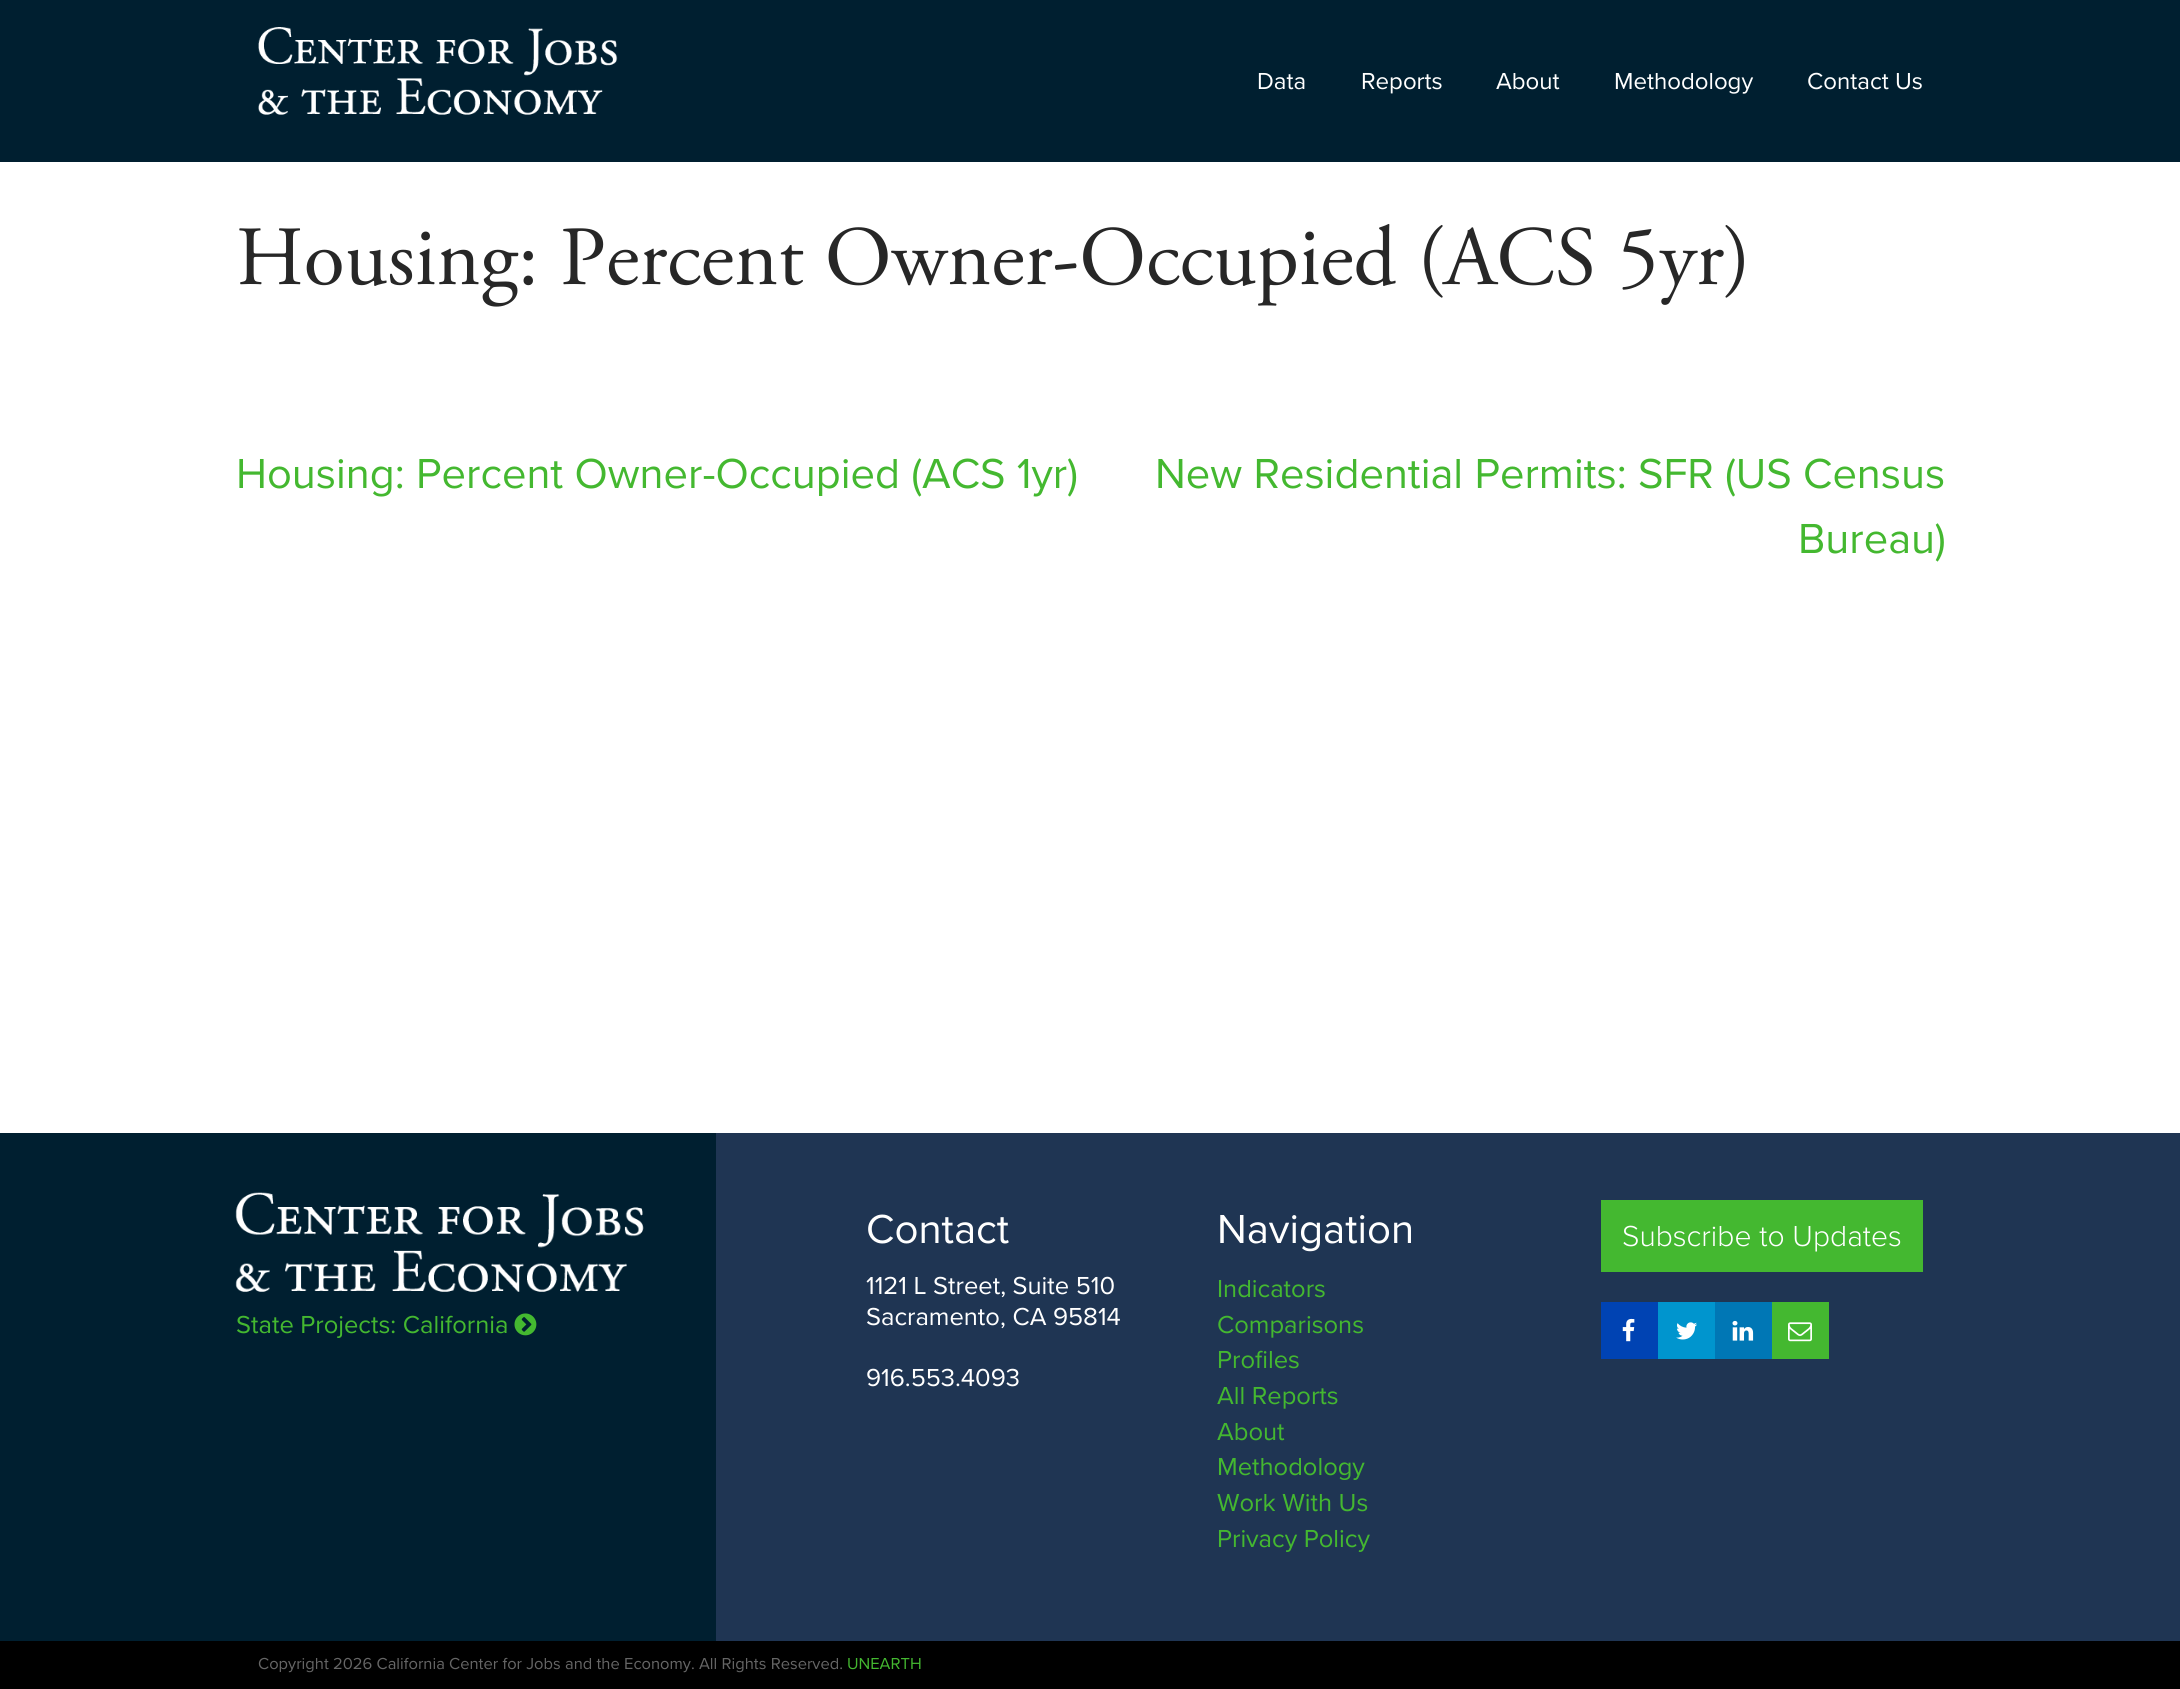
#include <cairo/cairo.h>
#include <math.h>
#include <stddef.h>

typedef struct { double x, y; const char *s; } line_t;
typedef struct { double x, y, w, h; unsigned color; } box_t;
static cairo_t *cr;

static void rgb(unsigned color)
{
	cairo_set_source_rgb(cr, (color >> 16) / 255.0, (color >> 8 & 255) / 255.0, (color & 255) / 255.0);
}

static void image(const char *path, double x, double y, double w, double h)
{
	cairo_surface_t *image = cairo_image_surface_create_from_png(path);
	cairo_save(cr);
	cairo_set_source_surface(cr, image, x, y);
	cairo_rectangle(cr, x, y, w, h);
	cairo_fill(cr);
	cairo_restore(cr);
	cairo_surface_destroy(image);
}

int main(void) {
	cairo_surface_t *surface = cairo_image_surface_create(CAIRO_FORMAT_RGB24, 2180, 1689);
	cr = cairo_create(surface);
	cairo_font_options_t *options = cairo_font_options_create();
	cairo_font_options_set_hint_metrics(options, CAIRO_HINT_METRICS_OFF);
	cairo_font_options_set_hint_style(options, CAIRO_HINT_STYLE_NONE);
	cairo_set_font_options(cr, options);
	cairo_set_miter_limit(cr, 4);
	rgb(0xffffff);
	cairo_paint(cr);
	rgb(0x001f30);
	cairo_rectangle(cr, 0, 0, 2180, 162);
	cairo_fill(cr);
	image("img/1.png", 258, 27, 360, 88);
	cairo_rectangle(cr, 0, 1133, 716, 508);
	cairo_fill(cr);
	image("img/2.png", 235, 1192, 409, 100);
	image("img/3.png", 514, 1313, 23, 23);
	{
		static const box_t items[] = {
			{716, 1133, 1464, 508, 0x1f3553},
			{1601, 1200, 322, 72, 0x44b830},
			{1601, 1302, 57, 57, 0x0043b3},
		};
		for (size_t i = 0; i < sizeof items / sizeof *items; i++) {
			rgb(items[i].color);
			cairo_rectangle(cr, items[i].x, items[i].y, items[i].w, items[i].h);
			cairo_fill(cr);
		}
	}
	image("img/4.png", 1622, 1318, 13, 24);
	rgb(0x0095ce);
	cairo_rectangle(cr, 1658, 1302, 57, 57);
	cairo_fill(cr);
	image("img/5.png", 1676, 1322, 21, 18);
	rgb(0x0077b5);
	cairo_rectangle(cr, 1715, 1302, 57, 57);
	cairo_fill(cr);
	image("img/6.png", 1732, 1320, 22, 21);
	rgb(0x44b830);
	cairo_rectangle(cr, 1772, 1302, 57, 57);
	cairo_fill(cr);
	image("img/7.png", 1788, 1322, 24, 20);
	rgb(0x000000);
	cairo_rectangle(cr, 0, 1641, 2180, 48);
	cairo_fill(cr);
	cairo_select_font_face(cr, "Proxima Nova", CAIRO_FONT_SLANT_NORMAL, CAIRO_FONT_WEIGHT_NORMAL);
	cairo_set_font_size(cr, 24);
	rgb(0xffffff);
	{
		static const line_t items[] = {
			{1257, 89, "Data"},
			{1361, 89, "Reports"},
			{1496, 89, "About"},
			{1614, 89, "Methodology"},
			{1807, 89, "Contact Us"},
		};
		for (size_t i = 0; i < sizeof items / sizeof *items; i++) {
			cairo_move_to(cr, items[i].x, items[i].y);
			cairo_show_text(cr, items[i].s);
		}
	}
	cairo_select_font_face(cr, "Adobe Garamond", CAIRO_FONT_SLANT_NORMAL, CAIRO_FONT_WEIGHT_NORMAL);
	cairo_set_font_size(cr, 84);
	rgb(0x272727);
	cairo_move_to(cr, 236, 284);
	cairo_show_text(cr, "Housing: Percent Owner-Occupied (ACS 5yr)");
	cairo_select_font_face(cr, "Proxima Nova", CAIRO_FONT_SLANT_NORMAL, CAIRO_FONT_WEIGHT_NORMAL);
	cairo_set_font_size(cr, 43.5);
	rgb(0x44b830);
	{
		static const line_t items[] = {
			{236, 488, "Housing: Percent Owner-Occupied (ACS 1yr)"},
			{1155, 488, "New Residential Permits: SFR (US Census"},
			{1798, 553, "Bureau)"},
		};
		for (size_t i = 0; i < sizeof items / sizeof *items; i++) {
			cairo_move_to(cr, items[i].x, items[i].y);
			cairo_show_text(cr, items[i].s);
		}
	}
	cairo_set_font_size(cr, 25.5);
	cairo_move_to(cr, 236, 1333);
	cairo_show_text(cr, "State Projects: California");
	cairo_set_font_size(cr, 42);
	rgb(0xffffff);
	cairo_move_to(cr, 866, 1243);
	cairo_show_text(cr, "Contact");
	cairo_set_font_size(cr, 25.5);
	{
		static const line_t items[] = {
			{866, 1294, "1121 L Street, Suite 510"},
			{866, 1325, "Sacramento, CA 95814"},
			{866, 1386, "916.553.4093"},
		};
		for (size_t i = 0; i < sizeof items / sizeof *items; i++) {
			cairo_move_to(cr, items[i].x, items[i].y);
			cairo_show_text(cr, items[i].s);
		}
	}
	cairo_set_font_size(cr, 42);
	cairo_move_to(cr, 1217, 1243);
	cairo_show_text(cr, "Navigation");
	cairo_set_font_size(cr, 25.5);
	rgb(0x44b830);
	{
		static const line_t items[] = {
			{1217, 1297, "Indicators"},
			{1217, 1333, "Comparisons"},
			{1217, 1368, "Profiles"},
			{1217, 1404, "All Reports"},
			{1217, 1440, "About"},
			{1217, 1475, "Methodology"},
			{1217, 1511, "Work With Us"},
			{1217, 1547, "Privacy Policy"},
		};
		for (size_t i = 0; i < sizeof items / sizeof *items; i++) {
			cairo_move_to(cr, items[i].x, items[i].y);
			cairo_show_text(cr, items[i].s);
		}
	}
	cairo_select_font_face(cr, "Proxima Nova Light", CAIRO_FONT_SLANT_NORMAL, CAIRO_FONT_WEIGHT_NORMAL);
	cairo_set_font_size(cr, 30);
	rgb(0xffffff);
	cairo_move_to(cr, 1622, 1246);
	cairo_show_text(cr, "Subscribe to Updates");
	cairo_select_font_face(cr, "Proxima Nova", CAIRO_FONT_SLANT_NORMAL, CAIRO_FONT_WEIGHT_NORMAL);
	cairo_set_font_size(cr, 16.5);
	rgb(0x666666);
	cairo_move_to(cr, 258, 1669);
	cairo_show_text(cr, "Copyright 2026 California Center for Jobs and the Economy. All Rights Reserved.");
	rgb(0x44b830);
	cairo_move_to(cr, 847, 1669);
	cairo_show_text(cr, "UNEARTH");
	cairo_surface_write_to_png(surface, "page.png");
	cairo_font_options_destroy(options);
	cairo_destroy(cr);
	cairo_surface_destroy(surface);
	return 0;
}
